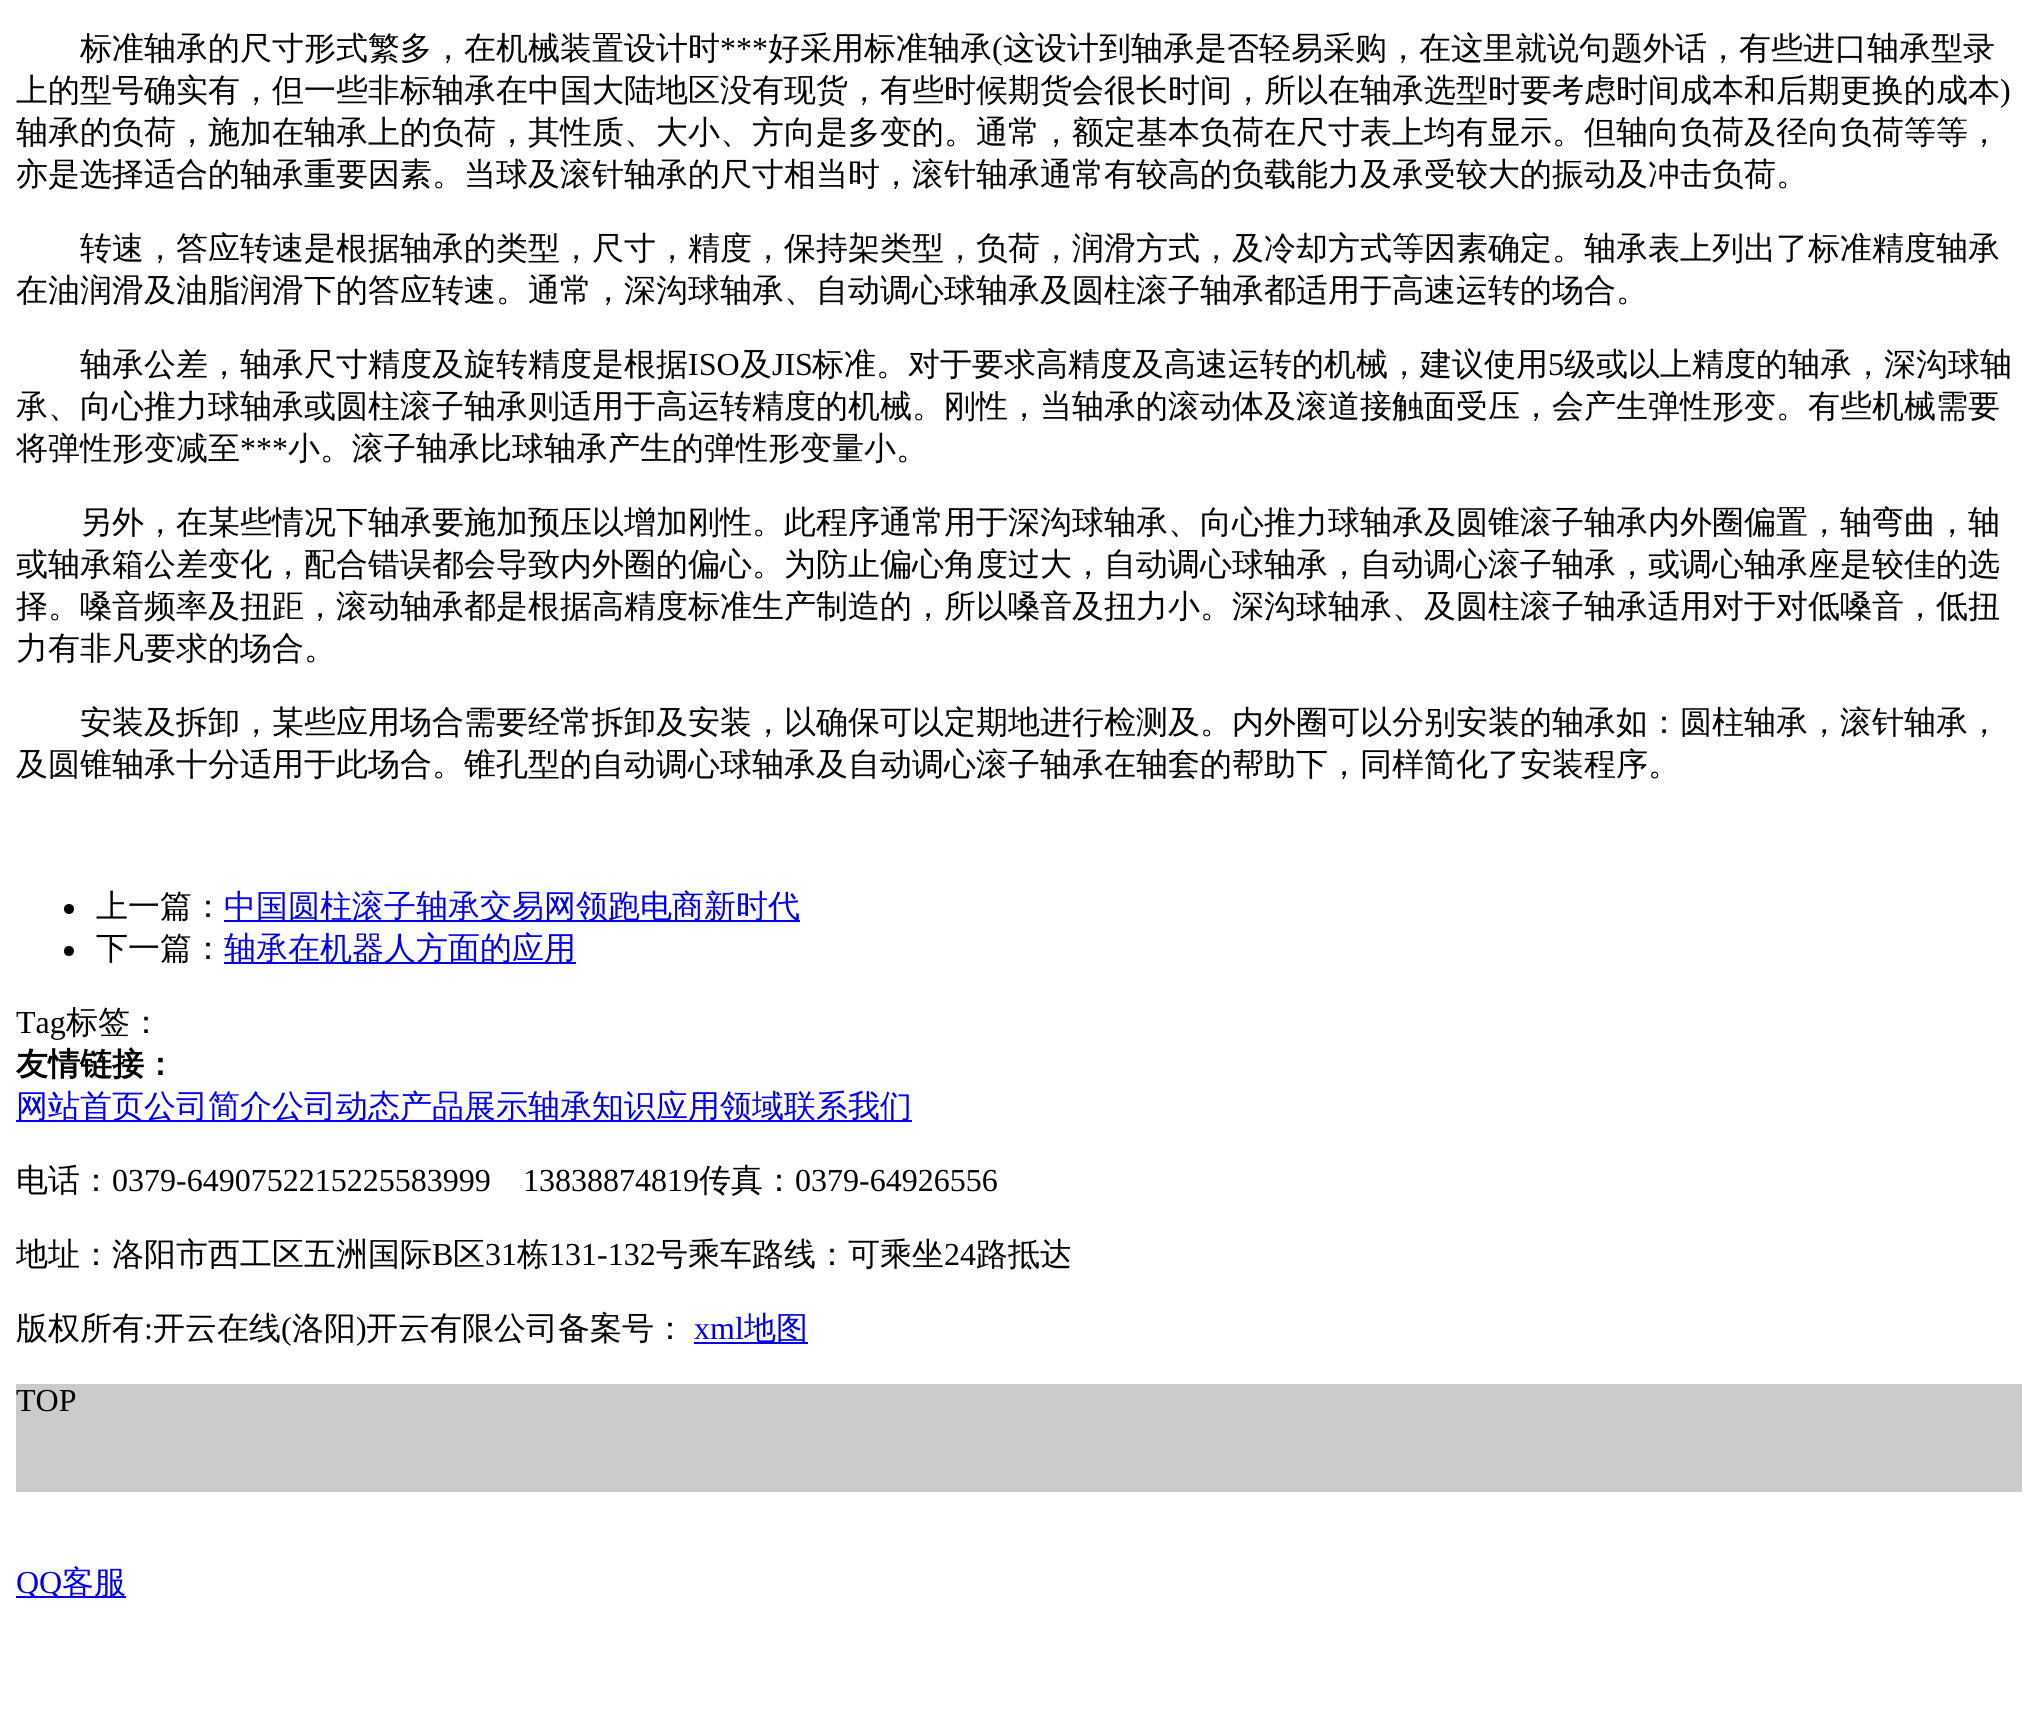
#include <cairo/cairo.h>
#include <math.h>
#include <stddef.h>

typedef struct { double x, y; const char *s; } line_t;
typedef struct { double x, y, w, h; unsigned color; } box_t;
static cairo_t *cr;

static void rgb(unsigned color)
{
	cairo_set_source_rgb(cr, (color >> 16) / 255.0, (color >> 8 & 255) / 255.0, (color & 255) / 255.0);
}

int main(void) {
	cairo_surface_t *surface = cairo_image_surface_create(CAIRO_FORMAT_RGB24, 2038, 1734);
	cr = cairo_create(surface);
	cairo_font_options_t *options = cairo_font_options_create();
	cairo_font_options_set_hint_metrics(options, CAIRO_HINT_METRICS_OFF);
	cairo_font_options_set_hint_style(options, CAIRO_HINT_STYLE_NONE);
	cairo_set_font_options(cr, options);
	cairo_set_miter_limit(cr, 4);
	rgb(0xffffff);
	cairo_paint(cr);
	rgb(0x000000);
	cairo_arc(cr, 69, 909, 5, 0, 2 * M_PI);
	cairo_fill(cr);
	rgb(0x0000ee);
	cairo_rectangle(cr, 224, 920, 576, 2);
	cairo_fill(cr);
	rgb(0x000000);
	cairo_arc(cr, 69, 951, 5, 0, 2 * M_PI);
	cairo_fill(cr);
	{
		static const box_t items[] = {
			{224, 962, 352, 2, 0x0000ee},
			{16, 1120, 896, 2, 0x0000ee},
			{694, 1342, 114, 2, 0x0000ee},
			{16, 1384, 2006, 108, 0xcbcbcb},
			{16, 1596, 110, 2, 0x0000ee},
		};
		for (size_t i = 0; i < sizeof items / sizeof *items; i++) {
			rgb(items[i].color);
			cairo_rectangle(cr, items[i].x, items[i].y, items[i].w, items[i].h);
			cairo_fill(cr);
		}
	}
	cairo_select_font_face(cr, "WenQuanYi Zen Hei Medium", CAIRO_FONT_SLANT_NORMAL, CAIRO_FONT_WEIGHT_NORMAL);
	cairo_set_font_size(cr, 32);
	rgb(0x000000);
	cairo_move_to(cr, 80, 59);
	cairo_show_text(cr, "标准轴承的尺寸形式繁多，在机械装置设计时");
	cairo_select_font_face(cr, "Liberation Serif", CAIRO_FONT_SLANT_NORMAL, CAIRO_FONT_WEIGHT_NORMAL);
	cairo_move_to(cr, 720, 59);
	cairo_show_text(cr, "***");
	cairo_select_font_face(cr, "WenQuanYi Zen Hei Medium", CAIRO_FONT_SLANT_NORMAL, CAIRO_FONT_WEIGHT_NORMAL);
	cairo_move_to(cr, 768, 59);
	cairo_show_text(cr, "好采用标准轴承");
	cairo_select_font_face(cr, "Liberation Serif", CAIRO_FONT_SLANT_NORMAL, CAIRO_FONT_WEIGHT_NORMAL);
	cairo_move_to(cr, 992, 59);
	cairo_show_text(cr, "(");
	cairo_select_font_face(cr, "WenQuanYi Zen Hei Medium", CAIRO_FONT_SLANT_NORMAL, CAIRO_FONT_WEIGHT_NORMAL);
	cairo_move_to(cr, 1003, 59);
	cairo_show_text(cr, "这设计到轴承是否轻易采购，在这里就说句题外话，有些进口轴承型录");
	cairo_move_to(cr, 16, 101);
	cairo_show_text(cr, "上的型号确实有，但一些非标轴承在中国大陆地区没有现货，有些时候期货会很长时间，所以在轴承选型时要考虑时间成本和后期更换的成本");
	cairo_select_font_face(cr, "Liberation Serif", CAIRO_FONT_SLANT_NORMAL, CAIRO_FONT_WEIGHT_NORMAL);
	cairo_move_to(cr, 2000, 101);
	cairo_show_text(cr, ")");
	cairo_select_font_face(cr, "WenQuanYi Zen Hei Medium", CAIRO_FONT_SLANT_NORMAL, CAIRO_FONT_WEIGHT_NORMAL);
	{
		static const line_t items[] = {
			{16, 143, "轴承的负荷，施加在轴承上的负荷，其性质、大小、方向是多变的。通常，额定基本负荷在尺寸表上均有显示。但轴向负荷及径向负荷等等，"},
			{16, 185, "亦是选择适合的轴承重要因素。当球及滚针轴承的尺寸相当时，滚针轴承通常有较高的负载能力及承受较大的振动及冲击负荷。"},
			{80, 259, "转速，答应转速是根据轴承的类型，尺寸，精度，保持架类型，负荷，润滑方式，及冷却方式等因素确定。轴承表上列出了标准精度轴承"},
			{16, 301, "在油润滑及油脂润滑下的答应转速。通常，深沟球轴承、自动调心球轴承及圆柱滚子轴承都适用于高速运转的场合。"},
			{80, 375, "轴承公差，轴承尺寸精度及旋转精度是根据"},
		};
		for (size_t i = 0; i < sizeof items / sizeof *items; i++) {
			cairo_move_to(cr, items[i].x, items[i].y);
			cairo_show_text(cr, items[i].s);
		}
	}
	cairo_select_font_face(cr, "Liberation Serif", CAIRO_FONT_SLANT_NORMAL, CAIRO_FONT_WEIGHT_NORMAL);
	cairo_move_to(cr, 688, 375);
	cairo_show_text(cr, "ISO");
	cairo_select_font_face(cr, "WenQuanYi Zen Hei Medium", CAIRO_FONT_SLANT_NORMAL, CAIRO_FONT_WEIGHT_NORMAL);
	cairo_move_to(cr, 740, 375);
	cairo_show_text(cr, "及");
	cairo_select_font_face(cr, "Liberation Serif", CAIRO_FONT_SLANT_NORMAL, CAIRO_FONT_WEIGHT_NORMAL);
	cairo_move_to(cr, 772, 375);
	cairo_show_text(cr, "JIS");
	cairo_select_font_face(cr, "WenQuanYi Zen Hei Medium", CAIRO_FONT_SLANT_NORMAL, CAIRO_FONT_WEIGHT_NORMAL);
	cairo_move_to(cr, 812, 375);
	cairo_show_text(cr, "标准。对于要求高精度及高速运转的机械，建议使用");
	cairo_select_font_face(cr, "Liberation Serif", CAIRO_FONT_SLANT_NORMAL, CAIRO_FONT_WEIGHT_NORMAL);
	cairo_move_to(cr, 1548, 375);
	cairo_show_text(cr, "5");
	cairo_select_font_face(cr, "WenQuanYi Zen Hei Medium", CAIRO_FONT_SLANT_NORMAL, CAIRO_FONT_WEIGHT_NORMAL);
	{
		static const line_t items[] = {
			{1564, 375, "级或以上精度的轴承，深沟球轴"},
			{16, 417, "承、向心推力球轴承或圆柱滚子轴承则适用于高运转精度的机械。刚性，当轴承的滚动体及滚道接触面受压，会产生弹性形变。有些机械需要"},
			{16, 459, "将弹性形变减至"},
		};
		for (size_t i = 0; i < sizeof items / sizeof *items; i++) {
			cairo_move_to(cr, items[i].x, items[i].y);
			cairo_show_text(cr, items[i].s);
		}
	}
	cairo_select_font_face(cr, "Liberation Serif", CAIRO_FONT_SLANT_NORMAL, CAIRO_FONT_WEIGHT_NORMAL);
	cairo_move_to(cr, 240, 459);
	cairo_show_text(cr, "***");
	cairo_select_font_face(cr, "WenQuanYi Zen Hei Medium", CAIRO_FONT_SLANT_NORMAL, CAIRO_FONT_WEIGHT_NORMAL);
	{
		static const line_t items[] = {
			{288, 459, "小。滚子轴承比球轴承产生的弹性形变量小。"},
			{80, 533, "另外，在某些情况下轴承要施加预压以增加刚性。此程序通常用于深沟球轴承、向心推力球轴承及圆锥滚子轴承内外圈偏置，轴弯曲，轴"},
			{16, 575, "或轴承箱公差变化，配合错误都会导致内外圈的偏心。为防止偏心角度过大，自动调心球轴承，自动调心滚子轴承，或调心轴承座是较佳的选"},
			{16, 617, "择。嗓音频率及扭距，滚动轴承都是根据高精度标准生产制造的，所以嗓音及扭力小。深沟球轴承、及圆柱滚子轴承适用对于对低嗓音，低扭"},
			{16, 659, "力有非凡要求的场合。"},
			{80, 733, "安装及拆卸，某些应用场合需要经常拆卸及安装，以确保可以定期地进行检测及。内外圈可以分别安装的轴承如：圆柱轴承，滚针轴承，"},
			{16, 775, "及圆锥轴承十分适用于此场合。锥孔型的自动调心球轴承及自动调心滚子轴承在轴套的帮助下，同样简化了安装程序。"},
			{96, 917, "上一篇："},
		};
		for (size_t i = 0; i < sizeof items / sizeof *items; i++) {
			cairo_move_to(cr, items[i].x, items[i].y);
			cairo_show_text(cr, items[i].s);
		}
	}
	rgb(0x0000ee);
	cairo_move_to(cr, 224, 917);
	cairo_show_text(cr, "中国圆柱滚子轴承交易网领跑电商新时代");
	rgb(0x000000);
	cairo_move_to(cr, 96, 959);
	cairo_show_text(cr, "下一篇：");
	rgb(0x0000ee);
	cairo_move_to(cr, 224, 959);
	cairo_show_text(cr, "轴承在机器人方面的应用");
	cairo_select_font_face(cr, "Liberation Serif", CAIRO_FONT_SLANT_NORMAL, CAIRO_FONT_WEIGHT_NORMAL);
	rgb(0x000000);
	cairo_move_to(cr, 16, 1033);
	cairo_show_text(cr, "Tag");
	cairo_select_font_face(cr, "WenQuanYi Zen Hei Medium", CAIRO_FONT_SLANT_NORMAL, CAIRO_FONT_WEIGHT_NORMAL);
	cairo_move_to(cr, 66, 1033);
	cairo_show_text(cr, "标签：");
	cairo_select_font_face(cr, "WenQuanYi Zen Hei", CAIRO_FONT_SLANT_NORMAL, CAIRO_FONT_WEIGHT_BOLD);
	cairo_move_to(cr, 16, 1075);
	cairo_show_text(cr, "友情链接：");
	cairo_select_font_face(cr, "WenQuanYi Zen Hei Medium", CAIRO_FONT_SLANT_NORMAL, CAIRO_FONT_WEIGHT_NORMAL);
	rgb(0x0000ee);
	cairo_move_to(cr, 16, 1117);
	cairo_show_text(cr, "网站首页公司简介公司动态产品展示轴承知识应用领域联系我们");
	rgb(0x000000);
	cairo_move_to(cr, 16, 1191);
	cairo_show_text(cr, "电话：");
	cairo_select_font_face(cr, "Liberation Serif", CAIRO_FONT_SLANT_NORMAL, CAIRO_FONT_WEIGHT_NORMAL);
	cairo_move_to(cr, 112, 1191);
	cairo_show_text(cr, "0379-6490752215225583999");
	cairo_move_to(cr, 523, 1191);
	cairo_show_text(cr, "13838874819");
	cairo_select_font_face(cr, "WenQuanYi Zen Hei Medium", CAIRO_FONT_SLANT_NORMAL, CAIRO_FONT_WEIGHT_NORMAL);
	cairo_move_to(cr, 699, 1191);
	cairo_show_text(cr, "传真：");
	cairo_select_font_face(cr, "Liberation Serif", CAIRO_FONT_SLANT_NORMAL, CAIRO_FONT_WEIGHT_NORMAL);
	cairo_move_to(cr, 795, 1191);
	cairo_show_text(cr, "0379-64926556");
	cairo_select_font_face(cr, "WenQuanYi Zen Hei Medium", CAIRO_FONT_SLANT_NORMAL, CAIRO_FONT_WEIGHT_NORMAL);
	cairo_move_to(cr, 16, 1265);
	cairo_show_text(cr, "地址：洛阳市西工区五洲国际");
	cairo_select_font_face(cr, "Liberation Serif", CAIRO_FONT_SLANT_NORMAL, CAIRO_FONT_WEIGHT_NORMAL);
	cairo_move_to(cr, 432, 1265);
	cairo_show_text(cr, "B");
	cairo_select_font_face(cr, "WenQuanYi Zen Hei Medium", CAIRO_FONT_SLANT_NORMAL, CAIRO_FONT_WEIGHT_NORMAL);
	cairo_move_to(cr, 453, 1265);
	cairo_show_text(cr, "区");
	cairo_select_font_face(cr, "Liberation Serif", CAIRO_FONT_SLANT_NORMAL, CAIRO_FONT_WEIGHT_NORMAL);
	cairo_move_to(cr, 485, 1265);
	cairo_show_text(cr, "31");
	cairo_select_font_face(cr, "WenQuanYi Zen Hei Medium", CAIRO_FONT_SLANT_NORMAL, CAIRO_FONT_WEIGHT_NORMAL);
	cairo_move_to(cr, 517, 1265);
	cairo_show_text(cr, "栋");
	cairo_select_font_face(cr, "Liberation Serif", CAIRO_FONT_SLANT_NORMAL, CAIRO_FONT_WEIGHT_NORMAL);
	cairo_move_to(cr, 549, 1265);
	cairo_show_text(cr, "131-132");
	cairo_select_font_face(cr, "WenQuanYi Zen Hei Medium", CAIRO_FONT_SLANT_NORMAL, CAIRO_FONT_WEIGHT_NORMAL);
	cairo_move_to(cr, 656, 1265);
	cairo_show_text(cr, "号乘车路线：可乘坐");
	cairo_select_font_face(cr, "Liberation Serif", CAIRO_FONT_SLANT_NORMAL, CAIRO_FONT_WEIGHT_NORMAL);
	cairo_move_to(cr, 944, 1265);
	cairo_show_text(cr, "24");
	cairo_select_font_face(cr, "WenQuanYi Zen Hei Medium", CAIRO_FONT_SLANT_NORMAL, CAIRO_FONT_WEIGHT_NORMAL);
	cairo_move_to(cr, 976, 1265);
	cairo_show_text(cr, "路抵达");
	cairo_move_to(cr, 16, 1339);
	cairo_show_text(cr, "版权所有");
	cairo_select_font_face(cr, "Liberation Serif", CAIRO_FONT_SLANT_NORMAL, CAIRO_FONT_WEIGHT_NORMAL);
	cairo_move_to(cr, 144, 1339);
	cairo_show_text(cr, ":");
	cairo_select_font_face(cr, "WenQuanYi Zen Hei Medium", CAIRO_FONT_SLANT_NORMAL, CAIRO_FONT_WEIGHT_NORMAL);
	cairo_move_to(cr, 153, 1339);
	cairo_show_text(cr, "开云在线");
	cairo_select_font_face(cr, "Liberation Serif", CAIRO_FONT_SLANT_NORMAL, CAIRO_FONT_WEIGHT_NORMAL);
	cairo_move_to(cr, 281, 1339);
	cairo_show_text(cr, "(");
	cairo_select_font_face(cr, "WenQuanYi Zen Hei Medium", CAIRO_FONT_SLANT_NORMAL, CAIRO_FONT_WEIGHT_NORMAL);
	cairo_move_to(cr, 292, 1339);
	cairo_show_text(cr, "洛阳");
	cairo_select_font_face(cr, "Liberation Serif", CAIRO_FONT_SLANT_NORMAL, CAIRO_FONT_WEIGHT_NORMAL);
	cairo_move_to(cr, 356, 1339);
	cairo_show_text(cr, ")");
	cairo_select_font_face(cr, "WenQuanYi Zen Hei Medium", CAIRO_FONT_SLANT_NORMAL, CAIRO_FONT_WEIGHT_NORMAL);
	cairo_move_to(cr, 366, 1339);
	cairo_show_text(cr, "开云有限公司备案号：");
	cairo_select_font_face(cr, "Liberation Serif", CAIRO_FONT_SLANT_NORMAL, CAIRO_FONT_WEIGHT_NORMAL);
	rgb(0x0000ee);
	cairo_move_to(cr, 694, 1339);
	cairo_show_text(cr, "xml");
	cairo_select_font_face(cr, "WenQuanYi Zen Hei Medium", CAIRO_FONT_SLANT_NORMAL, CAIRO_FONT_WEIGHT_NORMAL);
	cairo_move_to(cr, 744, 1339);
	cairo_show_text(cr, "地图");
	cairo_select_font_face(cr, "Liberation Serif", CAIRO_FONT_SLANT_NORMAL, CAIRO_FONT_WEIGHT_NORMAL);
	rgb(0x000000);
	cairo_move_to(cr, 16, 1411);
	cairo_show_text(cr, "TOP");
	rgb(0x0000ee);
	cairo_move_to(cr, 16, 1593);
	cairo_show_text(cr, "QQ");
	cairo_select_font_face(cr, "WenQuanYi Zen Hei Medium", CAIRO_FONT_SLANT_NORMAL, CAIRO_FONT_WEIGHT_NORMAL);
	cairo_move_to(cr, 62, 1593);
	cairo_show_text(cr, "客服");
	cairo_surface_write_to_png(surface, "page.png");
	cairo_font_options_destroy(options);
	cairo_destroy(cr);
	cairo_surface_destroy(surface);
	return 0;
}
